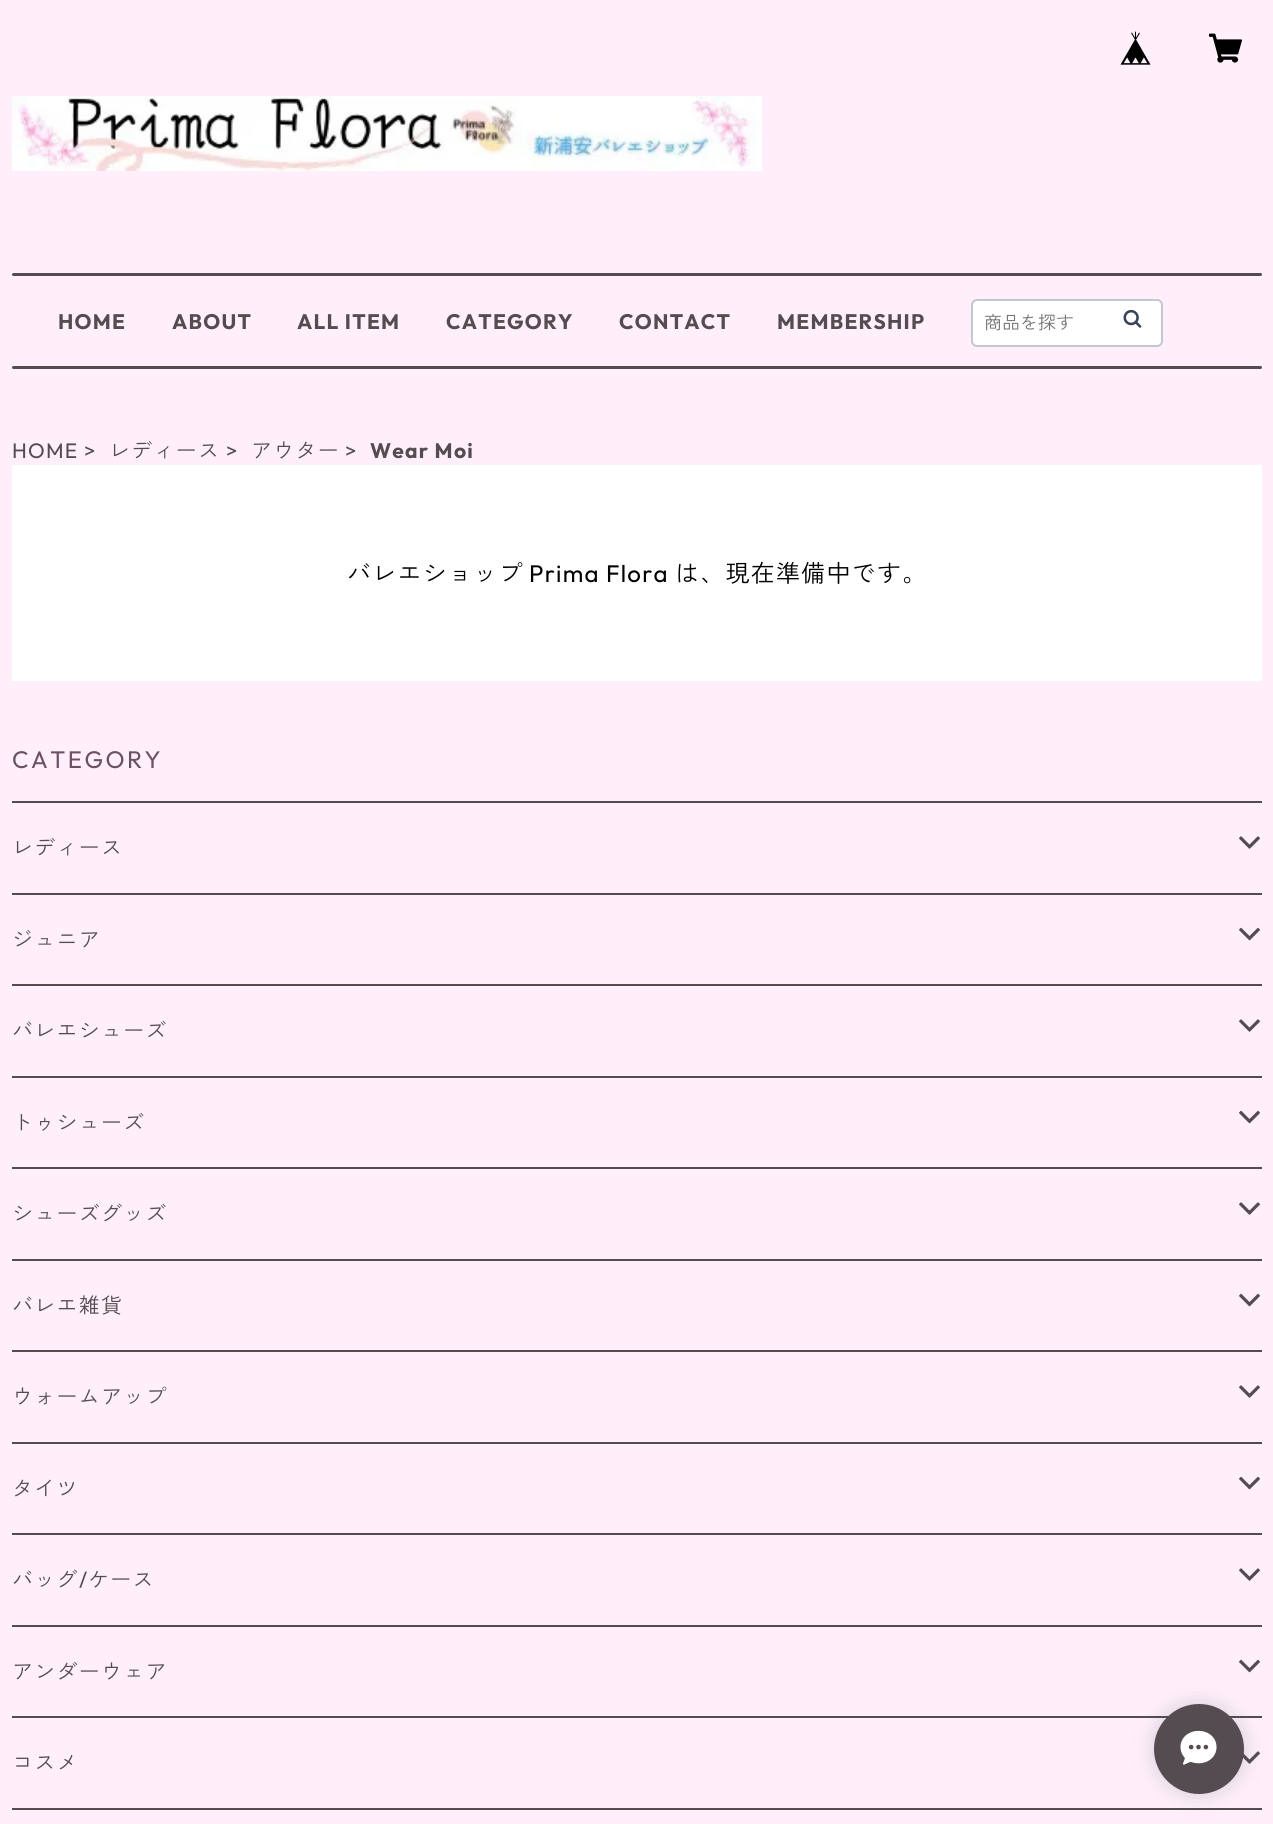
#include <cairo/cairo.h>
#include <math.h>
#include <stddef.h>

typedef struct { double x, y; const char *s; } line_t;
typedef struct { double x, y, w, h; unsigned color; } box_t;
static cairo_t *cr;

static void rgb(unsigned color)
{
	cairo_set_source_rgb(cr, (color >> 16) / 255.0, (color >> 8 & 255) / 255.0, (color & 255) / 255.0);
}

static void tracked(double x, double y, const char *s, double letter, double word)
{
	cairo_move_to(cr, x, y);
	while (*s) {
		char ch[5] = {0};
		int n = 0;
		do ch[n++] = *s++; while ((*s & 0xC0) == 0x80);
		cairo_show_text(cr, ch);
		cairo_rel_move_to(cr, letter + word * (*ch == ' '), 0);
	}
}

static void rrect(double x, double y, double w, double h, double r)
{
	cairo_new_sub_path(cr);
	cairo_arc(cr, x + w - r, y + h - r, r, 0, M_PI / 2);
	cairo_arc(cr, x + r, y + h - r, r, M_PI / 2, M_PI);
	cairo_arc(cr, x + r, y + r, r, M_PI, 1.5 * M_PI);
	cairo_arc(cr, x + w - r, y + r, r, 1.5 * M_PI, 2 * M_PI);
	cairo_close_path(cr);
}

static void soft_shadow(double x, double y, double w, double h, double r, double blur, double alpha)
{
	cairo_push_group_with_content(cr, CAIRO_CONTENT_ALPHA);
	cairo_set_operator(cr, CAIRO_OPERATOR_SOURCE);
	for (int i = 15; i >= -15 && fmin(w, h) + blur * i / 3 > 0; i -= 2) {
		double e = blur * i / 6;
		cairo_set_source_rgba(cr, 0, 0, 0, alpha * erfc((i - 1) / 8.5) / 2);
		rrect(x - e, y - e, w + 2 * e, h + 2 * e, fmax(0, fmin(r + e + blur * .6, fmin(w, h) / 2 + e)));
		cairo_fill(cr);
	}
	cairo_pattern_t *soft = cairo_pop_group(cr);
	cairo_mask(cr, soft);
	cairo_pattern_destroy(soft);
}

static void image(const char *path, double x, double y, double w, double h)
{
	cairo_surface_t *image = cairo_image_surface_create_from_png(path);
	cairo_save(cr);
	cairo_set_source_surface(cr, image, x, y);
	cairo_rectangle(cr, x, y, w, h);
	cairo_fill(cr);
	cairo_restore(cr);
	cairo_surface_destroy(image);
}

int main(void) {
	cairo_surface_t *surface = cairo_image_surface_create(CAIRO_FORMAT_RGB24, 1273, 1824);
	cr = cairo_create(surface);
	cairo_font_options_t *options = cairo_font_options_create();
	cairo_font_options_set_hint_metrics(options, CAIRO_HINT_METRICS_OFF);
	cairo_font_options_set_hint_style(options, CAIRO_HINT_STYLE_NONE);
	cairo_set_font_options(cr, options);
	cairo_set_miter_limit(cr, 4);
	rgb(0xffeffa);
	cairo_paint(cr);
	image("img/1.png", 1120, 31, 31, 34);
	image("img/2.png", 1209, 33, 33, 30);
	image("img/3.png", 12, 96, 750, 75);
	rgb(0x544c51);
	rrect(12, 273, 1250, 3, 1.5);
	cairo_fill(cr);
	rgb(0xffffff);
	rrect(972, 300, 190, 46, 5);
	cairo_fill_preserve(cr);
	rgb(0xc2c8d2);
	cairo_stroke(cr);
	image("img/4.png", 1123, 309, 19, 19);
	rgb(0x544c51);
	rrect(12, 366, 1250, 3, 1.5);
	cairo_fill(cr);
	{
		static const box_t items[] = {
			{12, 465, 1250, 216, 0xffffff},
			{12, 801, 1250, 2, 0x544c51},
			{12, 1808, 1250, 2, 0x544c51},
		};
		for (size_t i = 0; i < sizeof items / sizeof *items; i++) {
			rgb(items[i].color);
			cairo_rectangle(cr, items[i].x, items[i].y, items[i].w, items[i].h);
			cairo_fill(cr);
		}
	}
	image("img/5.png", 1239, 836, 21, 13);
	cairo_rectangle(cr, 12, 893, 1250, 2);
	cairo_fill(cr);
	image("img/6.png", 1239, 927, 21, 14);
	cairo_rectangle(cr, 12, 984, 1250, 2);
	cairo_fill(cr);
	image("img/5.png", 1239, 1019, 21, 13);
	cairo_rectangle(cr, 12, 1076, 1250, 2);
	cairo_fill(cr);
	image("img/6.png", 1239, 1110, 21, 14);
	cairo_rectangle(cr, 12, 1167, 1250, 2);
	cairo_fill(cr);
	image("img/5.png", 1239, 1202, 21, 13);
	cairo_rectangle(cr, 12, 1259, 1250, 2);
	cairo_fill(cr);
	image("img/6.png", 1239, 1293, 21, 14);
	cairo_rectangle(cr, 12, 1350, 1250, 2);
	cairo_fill(cr);
	image("img/5.png", 1239, 1385, 21, 13);
	cairo_rectangle(cr, 12, 1442, 1250, 2);
	cairo_fill(cr);
	image("img/6.png", 1239, 1476, 21, 14);
	cairo_rectangle(cr, 12, 1533, 1250, 2);
	cairo_fill(cr);
	image("img/5.png", 1239, 1568, 21, 13);
	cairo_rectangle(cr, 12, 1625, 1250, 2);
	cairo_fill(cr);
	image("img/6.png", 1239, 1659, 21, 14);
	cairo_rectangle(cr, 12, 1716, 1250, 2);
	cairo_fill(cr);
	image("img/7.png", 1243, 1751, 17, 13);
	rgb(0x334258);
	soft_shadow(1154, 1704, 90, 90, 45, 11, 0.2);
	rgb(0x544c51);
	cairo_arc(cr, 1199, 1749, 45, 0, 2 * M_PI);
	cairo_fill(cr);
	image("img/8.png", 1180, 1730, 37, 35);
	cairo_select_font_face(cr, "Outfit", CAIRO_FONT_SLANT_NORMAL, CAIRO_FONT_WEIGHT_BOLD);
	cairo_set_font_size(cr, 21);
	{
		static const line_t items[] = {
			{58, 329, "HOME"},
			{172, 329, "ABOUT"},
			{297, 329, "ALL ITEM"},
			{446, 329, "CATEGORY"},
			{619, 329, "CONTACT"},
			{777, 329, "MEMBERSHIP"},
		};
		for (size_t i = 0; i < sizeof items / sizeof *items; i++) {
			tracked(items[i].x, items[i].y, items[i].s, 1.25, 0);
		}
	}
	cairo_select_font_face(cr, "Zen Kaku Gothic New", CAIRO_FONT_SLANT_NORMAL, CAIRO_FONT_WEIGHT_NORMAL);
	cairo_set_font_size(cr, 18);
	rgb(0x757575);
	cairo_move_to(cr, 984, 329);
	cairo_show_text(cr, "商品を探す");
	cairo_select_font_face(cr, "Outfit", CAIRO_FONT_SLANT_NORMAL, CAIRO_FONT_WEIGHT_NORMAL);
	cairo_set_font_size(cr, 21);
	rgb(0x544c51);
	tracked(12, 458, "HOME", 1.25, 0);
	tracked(84, 458, ">", 1.25, 0);
	cairo_select_font_face(cr, "Zen Kaku Gothic New", CAIRO_FONT_SLANT_NORMAL, CAIRO_FONT_WEIGHT_NORMAL);
	tracked(109, 458, "レディース", 1.25, 0);
	cairo_select_font_face(cr, "Outfit", CAIRO_FONT_SLANT_NORMAL, CAIRO_FONT_WEIGHT_NORMAL);
	tracked(226, 458, ">", 1.25, 0);
	cairo_select_font_face(cr, "Zen Kaku Gothic New", CAIRO_FONT_SLANT_NORMAL, CAIRO_FONT_WEIGHT_NORMAL);
	tracked(251, 458, "アウター", 1.25, 0);
	cairo_select_font_face(cr, "Outfit", CAIRO_FONT_SLANT_NORMAL, CAIRO_FONT_WEIGHT_NORMAL);
	tracked(345, 458, ">", 1.25, 0);
	cairo_select_font_face(cr, "Outfit", CAIRO_FONT_SLANT_NORMAL, CAIRO_FONT_WEIGHT_BOLD);
	tracked(370, 458, "Wear Moi", 1.25, 0);
	cairo_select_font_face(cr, "Zen Kaku Gothic New", CAIRO_FONT_SLANT_NORMAL, CAIRO_FONT_WEIGHT_NORMAL);
	cairo_set_font_size(cr, 24);
	rgb(0x000000);
	tracked(347, 582, "バレエショップ", 1.25, 0);
	cairo_select_font_face(cr, "Outfit", CAIRO_FONT_SLANT_NORMAL, CAIRO_FONT_WEIGHT_NORMAL);
	tracked(529, 582, "Prima Flora", 1.25, 0);
	cairo_select_font_face(cr, "Zen Kaku Gothic New", CAIRO_FONT_SLANT_NORMAL, CAIRO_FONT_WEIGHT_NORMAL);
	tracked(675, 582, "は、現在準備中です。", 1.25, 0);
	cairo_select_font_face(cr, "Outfit", CAIRO_FONT_SLANT_NORMAL, CAIRO_FONT_WEIGHT_NORMAL);
	rgb(0x6b5263);
	tracked(12, 768, "CATEGORY", 2.5, 0);
	cairo_select_font_face(cr, "Zen Kaku Gothic New", CAIRO_FONT_SLANT_NORMAL, CAIRO_FONT_WEIGHT_NORMAL);
	cairo_set_font_size(cr, 21);
	rgb(0x544c51);
	{
		static const line_t items[] = {
			{12, 855, "レディース"},
			{12, 947, "ジュニア"},
			{12, 1038, "バレエシューズ"},
			{12, 1130, "トゥシューズ"},
			{12, 1221, "シューズグッズ"},
			{12, 1313, "バレエ雑貨"},
			{12, 1404, "ウォームアップ"},
			{12, 1496, "タイツ"},
			{12, 1587, "バッグ"},
		};
		for (size_t i = 0; i < sizeof items / sizeof *items; i++) {
			tracked(items[i].x, items[i].y, items[i].s, 1.25, 0);
		}
	}
	cairo_select_font_face(cr, "Outfit", CAIRO_FONT_SLANT_NORMAL, CAIRO_FONT_WEIGHT_NORMAL);
	tracked(79, 1587, "/", 1.25, 0);
	cairo_select_font_face(cr, "Zen Kaku Gothic New", CAIRO_FONT_SLANT_NORMAL, CAIRO_FONT_WEIGHT_NORMAL);
	{
		static const line_t items[] = {
			{88, 1587, "ケース"},
			{12, 1679, "アンダーウェア"},
			{12, 1770, "コスメ"},
		};
		for (size_t i = 0; i < sizeof items / sizeof *items; i++) {
			tracked(items[i].x, items[i].y, items[i].s, 1.25, 0);
		}
	}
	cairo_surface_write_to_png(surface, "page.png");
	cairo_font_options_destroy(options);
	cairo_destroy(cr);
	cairo_surface_destroy(surface);
	return 0;
}
